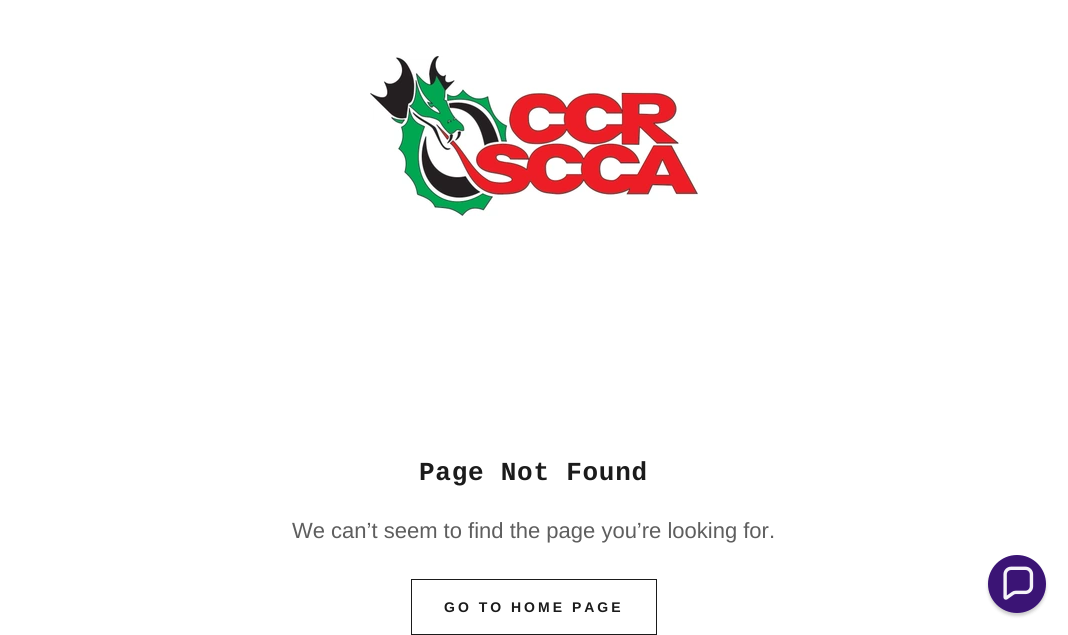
#include <cairo/cairo.h>
#include <math.h>
#include <stddef.h>

static cairo_t *cr;

static void rgb(unsigned color)
{
	cairo_set_source_rgb(cr, (color >> 16) / 255.0, (color >> 8 & 255) / 255.0, (color & 255) / 255.0);
}

static void tracked(double x, double y, const char *s, double letter, double word)
{
	cairo_move_to(cr, x, y);
	while (*s) {
		char ch[5] = {0};
		int n = 0;
		do ch[n++] = *s++; while ((*s & 0xC0) == 0x80);
		cairo_show_text(cr, ch);
		cairo_rel_move_to(cr, letter + word * (*ch == ' '), 0);
	}
}

static void rrect(double x, double y, double w, double h, double r)
{
	cairo_new_sub_path(cr);
	cairo_arc(cr, x + w - r, y + h - r, r, 0, M_PI / 2);
	cairo_arc(cr, x + r, y + h - r, r, M_PI / 2, M_PI);
	cairo_arc(cr, x + r, y + r, r, M_PI, 1.5 * M_PI);
	cairo_arc(cr, x + w - r, y + r, r, 1.5 * M_PI, 2 * M_PI);
	cairo_close_path(cr);
}

static void soft_shadow(double x, double y, double w, double h, double r, double blur, double alpha)
{
	cairo_push_group_with_content(cr, CAIRO_CONTENT_ALPHA);
	cairo_set_operator(cr, CAIRO_OPERATOR_SOURCE);
	for (int i = 15; i >= -15 && fmin(w, h) + blur * i / 3 > 0; i -= 2) {
		double e = blur * i / 6;
		cairo_set_source_rgba(cr, 0, 0, 0, alpha * erfc((i - 1) / 8.5) / 2);
		rrect(x - e, y - e, w + 2 * e, h + 2 * e, fmax(0, fmin(r + e + blur * .6, fmin(w, h) / 2 + e)));
		cairo_fill(cr);
	}
	cairo_pattern_t *soft = cairo_pop_group(cr);
	cairo_mask(cr, soft);
	cairo_pattern_destroy(soft);
}

static void image(const char *path, double x, double y, double w, double h)
{
	cairo_surface_t *image = cairo_image_surface_create_from_png(path);
	cairo_save(cr);
	cairo_set_source_surface(cr, image, x, y);
	cairo_rectangle(cr, x, y, w, h);
	cairo_fill(cr);
	cairo_restore(cr);
	cairo_surface_destroy(image);
}

int main(void) {
	cairo_surface_t *surface = cairo_image_surface_create(CAIRO_FORMAT_RGB24, 1068, 635);
	cr = cairo_create(surface);
	cairo_font_options_t *options = cairo_font_options_create();
	cairo_font_options_set_hint_metrics(options, CAIRO_HINT_METRICS_OFF);
	cairo_font_options_set_hint_style(options, CAIRO_HINT_STYLE_NONE);
	cairo_set_font_options(cr, options);
	cairo_set_miter_limit(cr, 4);
	rgb(0xffffff);
	cairo_paint(cr);
	image("img/1.png", 370, 56, 328, 160);
	cairo_rectangle(cr, 411.5, 579.5, 245, 55);
	rgb(0x1b1b1b);
	cairo_set_line_width(cr, 1);
	cairo_stroke(cr);
	rgb(0x0d0d0d);
	soft_shadow(988, 558, 58, 58, 29, 1.5, 0.2);
	rgb(0x3b1475);
	cairo_arc(cr, 1017, 584, 29, 0, 2 * M_PI);
	cairo_fill(cr);
	image("img/2.png", 1003, 566, 31, 34);
	cairo_select_font_face(cr, "Liberation Mono", CAIRO_FONT_SLANT_NORMAL, CAIRO_FONT_WEIGHT_BOLD);
	cairo_set_font_size(cr, 26);
	rgb(0x1b1b1b);
	tracked(419, 480, "Page Not Found", 0.75, 0);
	cairo_select_font_face(cr, "Liberation Sans", CAIRO_FONT_SLANT_NORMAL, CAIRO_FONT_WEIGHT_NORMAL);
	cairo_set_font_size(cr, 22);
	rgb(0x5e5e5e);
	cairo_move_to(cr, 292, 538);
	cairo_show_text(cr, "We can’t seem to find the page you’re looking for.");
	cairo_select_font_face(cr, "Liberation Sans", CAIRO_FONT_SLANT_NORMAL, CAIRO_FONT_WEIGHT_BOLD);
	cairo_set_font_size(cr, 14);
	rgb(0x1b1b1b);
	tracked(444, 612, "GO TO HOME PAGE", 3, 0);
	cairo_surface_write_to_png(surface, "page.png");
	cairo_font_options_destroy(options);
	cairo_destroy(cr);
	cairo_surface_destroy(surface);
	return 0;
}
